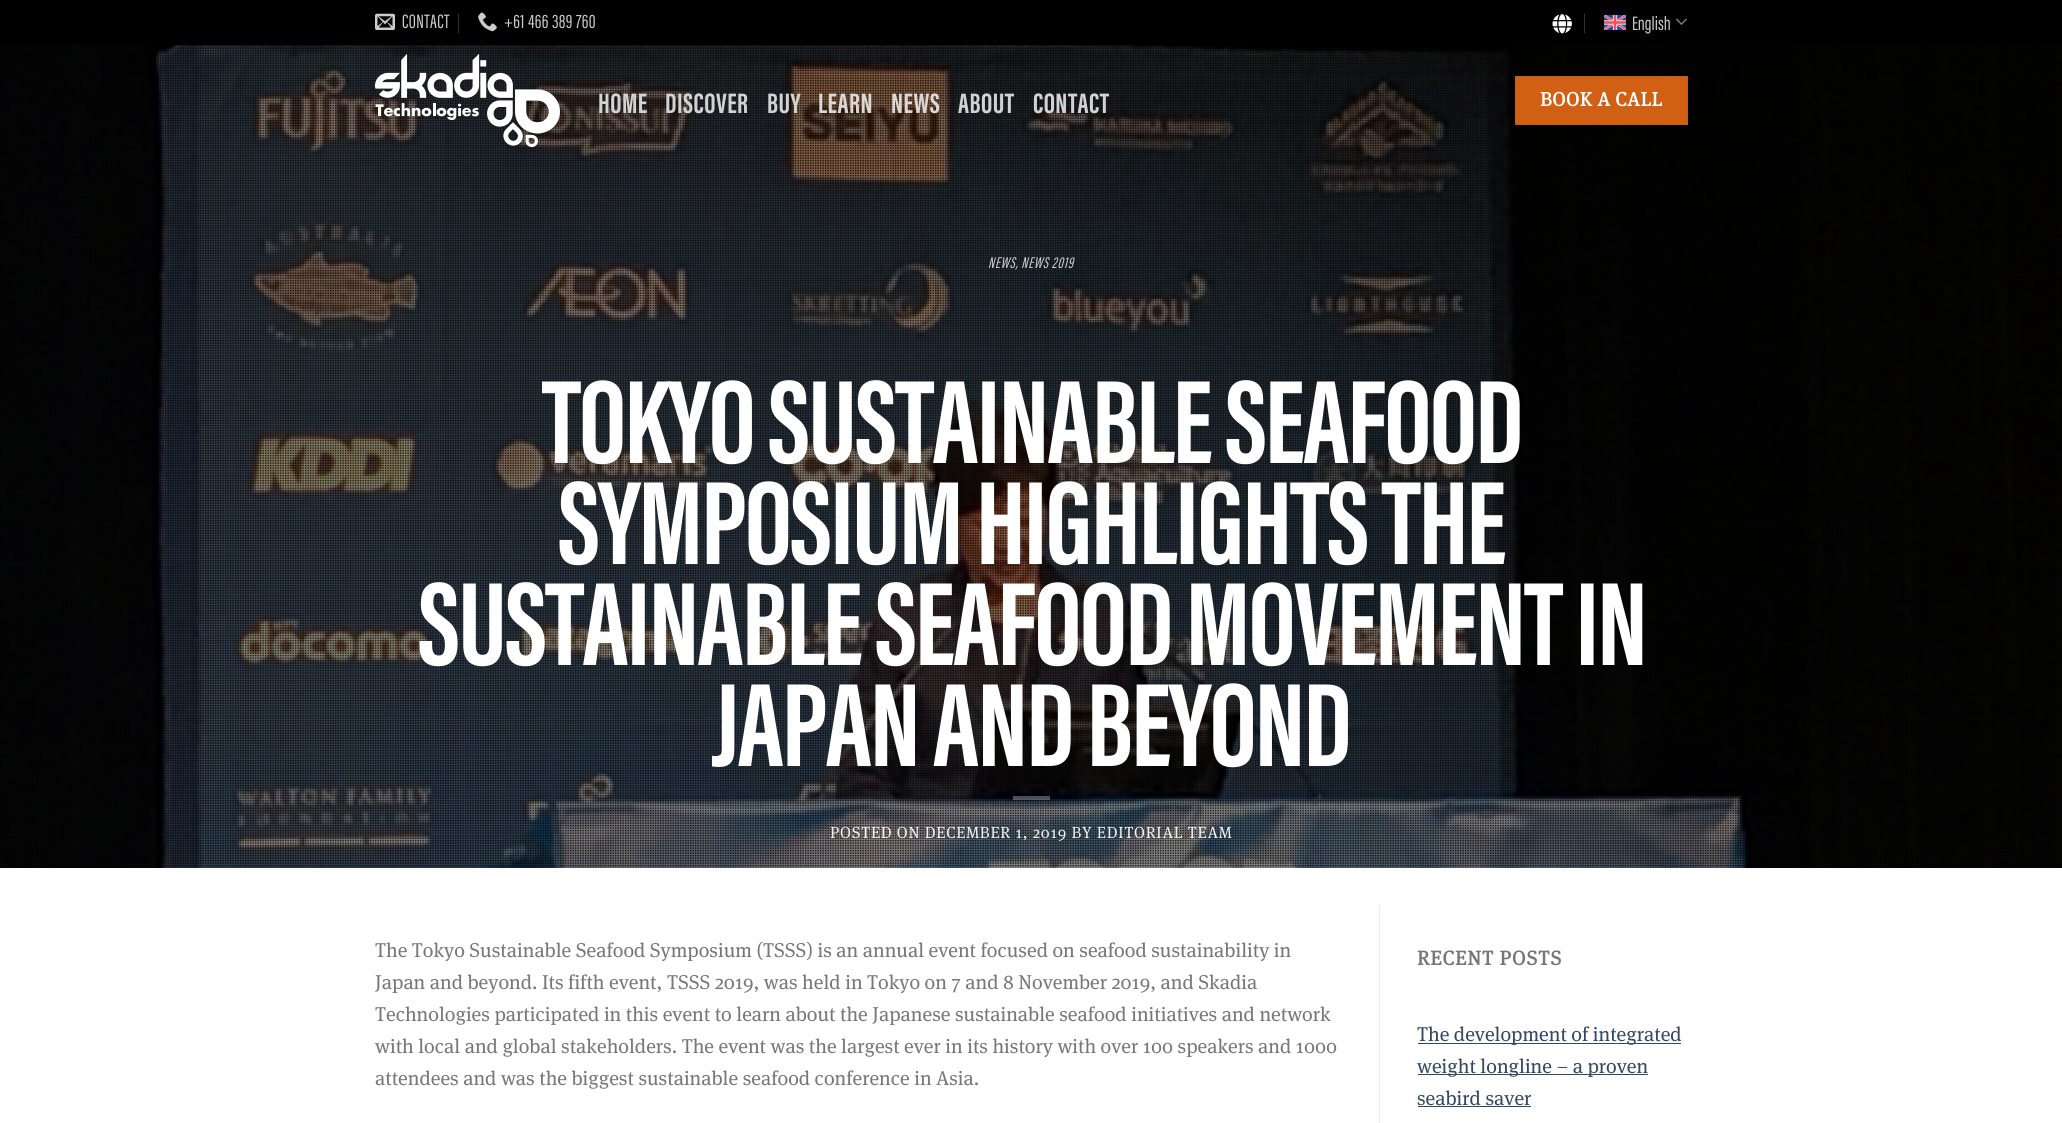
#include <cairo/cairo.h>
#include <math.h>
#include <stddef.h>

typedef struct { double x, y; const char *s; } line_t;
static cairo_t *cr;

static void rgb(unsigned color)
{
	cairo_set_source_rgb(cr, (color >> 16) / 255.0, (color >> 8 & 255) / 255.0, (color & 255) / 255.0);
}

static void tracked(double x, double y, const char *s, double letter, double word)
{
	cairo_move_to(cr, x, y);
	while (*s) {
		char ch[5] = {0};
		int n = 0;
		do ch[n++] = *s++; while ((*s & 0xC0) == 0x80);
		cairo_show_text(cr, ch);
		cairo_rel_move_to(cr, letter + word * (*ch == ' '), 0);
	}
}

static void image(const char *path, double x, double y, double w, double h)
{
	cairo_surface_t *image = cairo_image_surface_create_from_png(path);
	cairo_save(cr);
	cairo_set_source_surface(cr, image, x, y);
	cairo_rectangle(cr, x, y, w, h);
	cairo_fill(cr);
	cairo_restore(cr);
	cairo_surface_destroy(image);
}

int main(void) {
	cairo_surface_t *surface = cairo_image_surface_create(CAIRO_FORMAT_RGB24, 2062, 1123);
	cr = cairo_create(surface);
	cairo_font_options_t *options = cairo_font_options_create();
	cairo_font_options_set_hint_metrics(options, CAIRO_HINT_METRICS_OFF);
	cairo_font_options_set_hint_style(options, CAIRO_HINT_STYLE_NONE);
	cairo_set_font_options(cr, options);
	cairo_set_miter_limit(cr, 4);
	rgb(0xffffff);
	cairo_paint(cr);
	rgb(0x000000);
	cairo_rectangle(cr, 0, 0, 2062, 45);
	cairo_fill(cr);
	image("img/1.png", 375, 13, 20, 17);
	rgb(0x333333);
	cairo_rectangle(cr, 458, 14, 1, 19);
	cairo_fill(cr);
	image("img/2.png", 478, 12, 19, 20);
	image("img/3.png", 1552, 14, 20, 20);
	cairo_rectangle(cr, 1584, 14, 1, 19);
	cairo_fill(cr);
	image("img/4.png", 1604, 15, 22, 15);
	image("img/5.png", 1676, 18, 11, 7);
	image("img/7.png", 0, 45, 2062, 823);
	image("img/8.png", 0, 45, 2056, 823);
	image("img/6.png", 375, 54, 185, 93);
	rgb(0xd16014);
	cairo_rectangle(cr, 1515.5, 76.5, 172, 48);
	cairo_fill_preserve(cr);
	rgb(0xc75b13);
	cairo_set_line_width(cr, 1);
	cairo_stroke(cr);
	cairo_set_source_rgba(cr, 1, 1, 1, 0.3);
	cairo_rectangle(cr, 1013, 796, 37, 4);
	cairo_fill(cr);
	rgb(0xececec);
	cairo_rectangle(cr, 1379, 905, 1, 218);
	cairo_fill(cr);
	rgb(0x334862);
	cairo_rectangle(cr, 1418, 1043, 263, 1);
	cairo_fill(cr);
	cairo_rectangle(cr, 1418, 1074, 230, 1);
	cairo_fill(cr);
	cairo_rectangle(cr, 1418, 1106, 113, 1);
	cairo_fill(cr);
	cairo_select_font_face(cr, "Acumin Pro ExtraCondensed", CAIRO_FONT_SLANT_NORMAL, CAIRO_FONT_WEIGHT_NORMAL);
	cairo_set_font_size(cr, 20);
	rgb(0xcccccc);
	tracked(402, 28, "CONTACT", 0.4, 0);
	tracked(504, 28, "+61 466 389 760", 0.4, 0);
	cairo_move_to(cr, 1632, 30);
	cairo_show_text(cr, "English");
	cairo_select_font_face(cr, "Acumin Pro ExtraCondensed", CAIRO_FONT_SLANT_NORMAL, CAIRO_FONT_WEIGHT_BOLD);
	cairo_set_font_size(cr, 29);
	rgb(0xd1d2d3);
	{
		static const line_t items[] = {
			{598, 113, "HOME"},
			{665, 113, "DISCOVER"},
			{767, 113, "BUY"},
		};
		for (size_t i = 0; i < sizeof items / sizeof *items; i++) {
			tracked(items[i].x, items[i].y, items[i].s, 0.5, 0);
		}
	}
	rgb(0xdcd7d4);
	tracked(818, 113, "LEARN", 0.5, 0);
	tracked(891, 113, "NEWS", 0.5, 0);
	rgb(0xd1d2d3);
	tracked(958, 113, "ABOUT", 0.5, 0);
	tracked(1033, 113, "CONTACT", 0.5, 0);
	cairo_select_font_face(cr, "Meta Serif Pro", CAIRO_FONT_SLANT_NORMAL, CAIRO_FONT_WEIGHT_BOLD);
	cairo_set_font_size(cr, 19.5);
	rgb(0xffffff);
	tracked(1540, 106, "BOOK A CALL", 0.5, 0);
	cairo_select_font_face(cr, "Acumin Pro ExtraCondensed", CAIRO_FONT_SLANT_ITALIC, CAIRO_FONT_WEIGHT_NORMAL);
	cairo_set_font_size(cr, 16.1);
	rgb(0xd1d2d3);
	tracked(988, 268, "NEWS, NEWS 2019", 0.8, 0);
	cairo_select_font_face(cr, "Acumin Pro ExtraCondensed", CAIRO_FONT_SLANT_NORMAL, CAIRO_FONT_WEIGHT_BOLD);
	cairo_set_font_size(cr, 122);
	rgb(0xffffff);
	{
		static const line_t items[] = {
			{542, 463, "TOKYO SUSTAINABLE SEAFOOD"},
			{558, 564, "SYMPOSIUM HIGHLIGHTS THE"},
			{418, 665, "SUSTAINABLE SEAFOOD MOVEMENT IN"},
			{712, 766, "JAPAN AND BEYOND"},
		};
		for (size_t i = 0; i < sizeof items / sizeof *items; i++) {
			tracked(items[i].x, items[i].y, items[i].s, -1.8, 0);
		}
	}
	cairo_select_font_face(cr, "Meta Serif Pro", CAIRO_FONT_SLANT_NORMAL, CAIRO_FONT_WEIGHT_NORMAL);
	cairo_set_font_size(cr, 16.1);
	rgb(0xf1f1f1);
	tracked(830, 838, "POSTED ON DECEMBER 1, 2019 BY EDITORIAL TEAM", 0.8, 0);
	cairo_set_font_size(cr, 20);
	rgb(0x777777);
	{
		static const line_t items[] = {
			{375, 957, "The Tokyo Sustainable Seafood Symposium (TSSS) is an annual event focused on seafood sustainability in"},
			{375, 989, "Japan and beyond. Its fifth event, TSSS 2019, was held in Tokyo on 7 and 8 November 2019, and Skadia"},
			{375, 1021, "Technologies participated in this event to learn about the Japanese sustainable seafood initiatives and network"},
			{375, 1053, "with local and global stakeholders. The event was the largest ever in its history with over 100 speakers and 1000"},
			{375, 1085, "attendees and was the biggest sustainable seafood conference in Asia."},
		};
		for (size_t i = 0; i < sizeof items / sizeof *items; i++) {
			cairo_move_to(cr, items[i].x, items[i].y);
			cairo_show_text(cr, items[i].s);
		}
	}
	cairo_select_font_face(cr, "Meta Serif Pro", CAIRO_FONT_SLANT_NORMAL, CAIRO_FONT_WEIGHT_BOLD);
	tracked(1417, 965, "RECENT POSTS", 1, 0);
	cairo_select_font_face(cr, "Meta Serif Pro", CAIRO_FONT_SLANT_NORMAL, CAIRO_FONT_WEIGHT_NORMAL);
	rgb(0x334862);
	{
		static const line_t items[] = {
			{1417, 1041, "The development of integrated"},
			{1417, 1073, "weight longline – a proven"},
			{1417, 1105, "seabird saver"},
		};
		for (size_t i = 0; i < sizeof items / sizeof *items; i++) {
			cairo_move_to(cr, items[i].x, items[i].y);
			cairo_show_text(cr, items[i].s);
		}
	}
	cairo_surface_write_to_png(surface, "page.png");
	cairo_font_options_destroy(options);
	cairo_destroy(cr);
	cairo_surface_destroy(surface);
	return 0;
}
